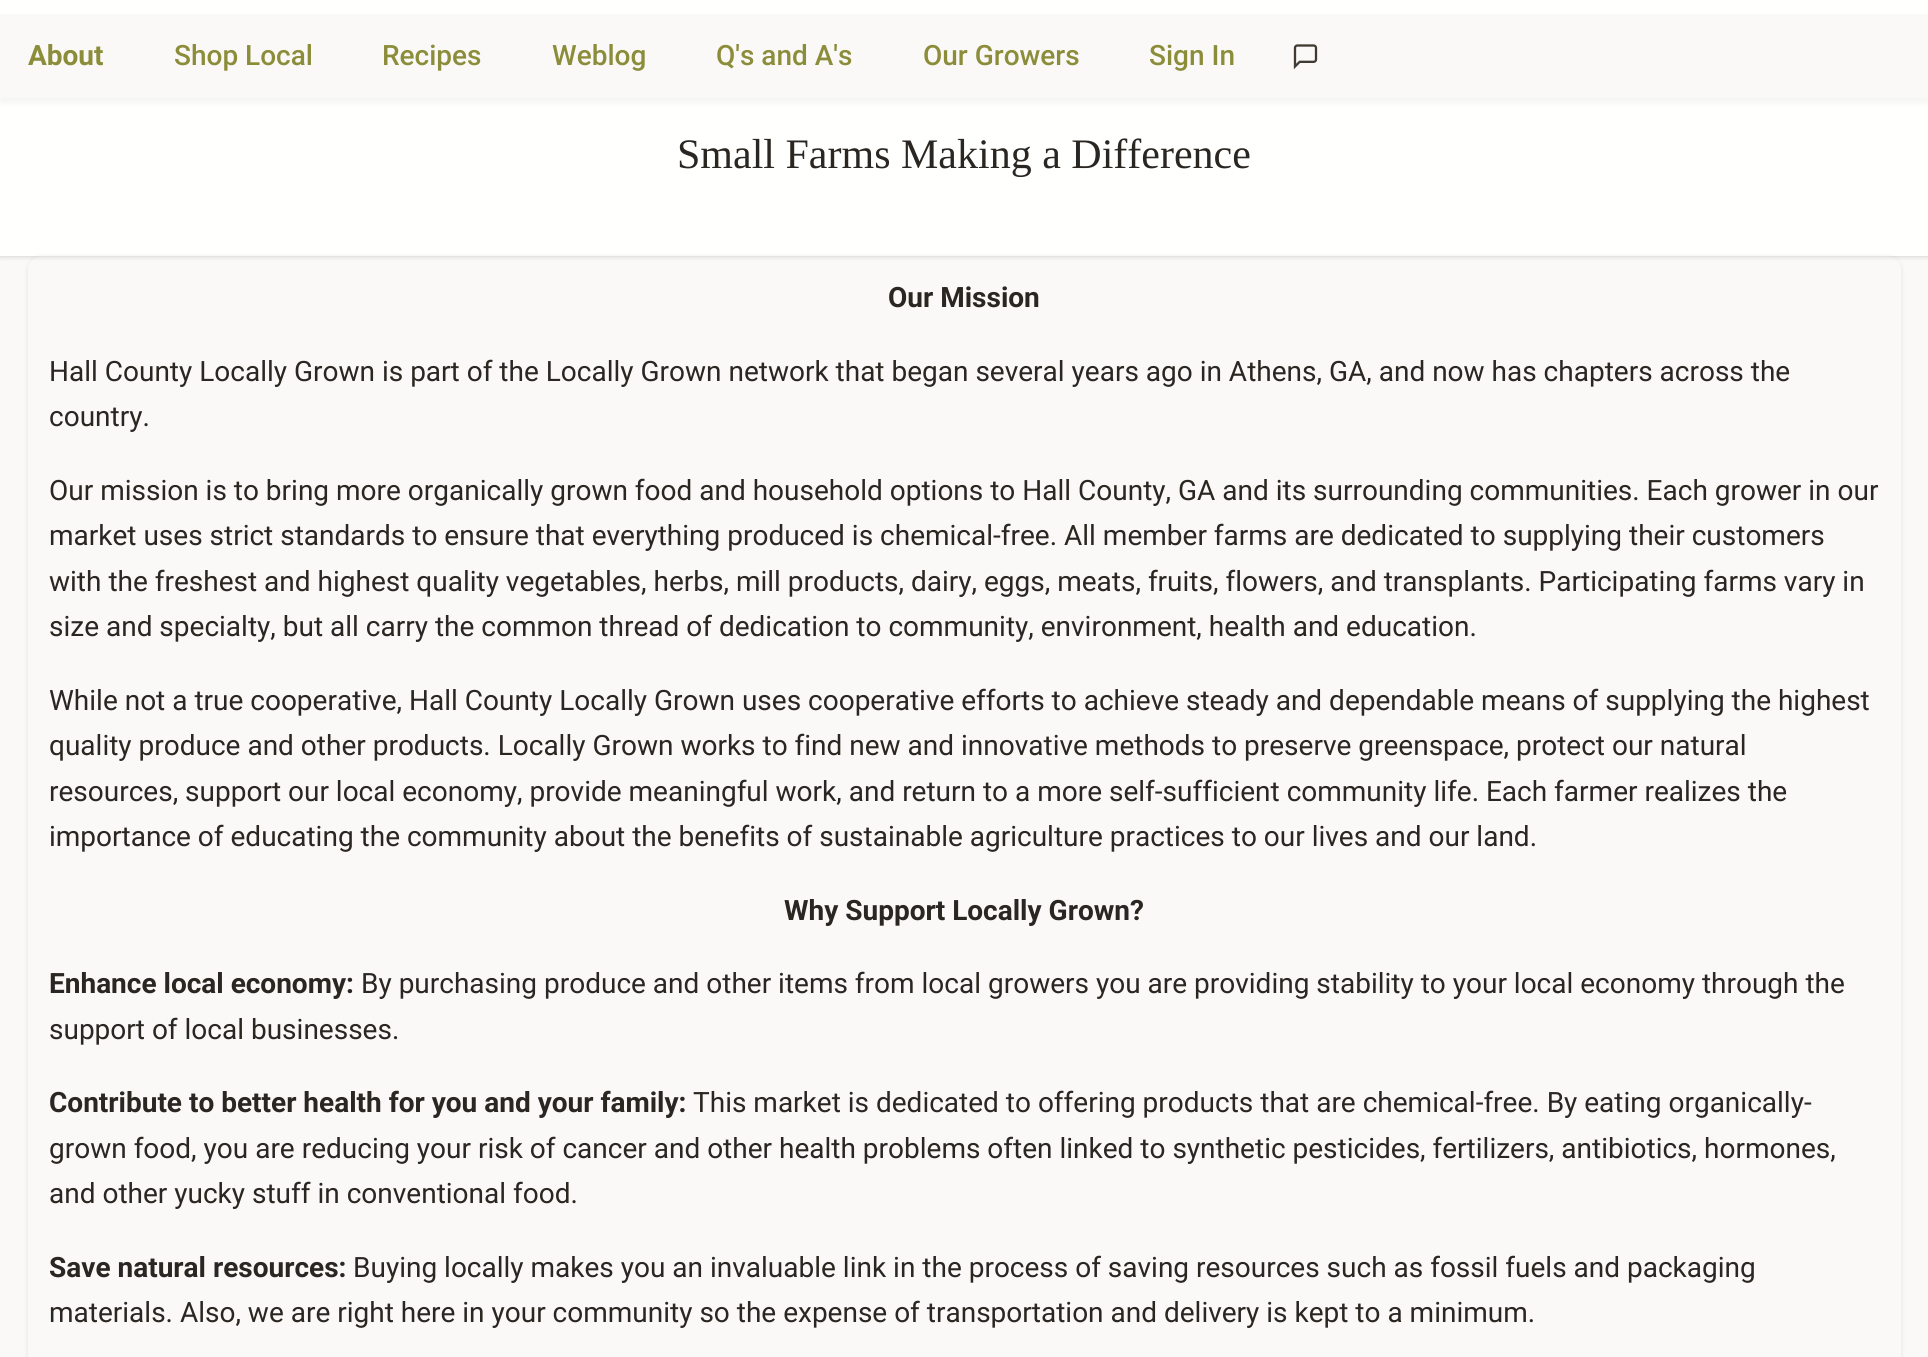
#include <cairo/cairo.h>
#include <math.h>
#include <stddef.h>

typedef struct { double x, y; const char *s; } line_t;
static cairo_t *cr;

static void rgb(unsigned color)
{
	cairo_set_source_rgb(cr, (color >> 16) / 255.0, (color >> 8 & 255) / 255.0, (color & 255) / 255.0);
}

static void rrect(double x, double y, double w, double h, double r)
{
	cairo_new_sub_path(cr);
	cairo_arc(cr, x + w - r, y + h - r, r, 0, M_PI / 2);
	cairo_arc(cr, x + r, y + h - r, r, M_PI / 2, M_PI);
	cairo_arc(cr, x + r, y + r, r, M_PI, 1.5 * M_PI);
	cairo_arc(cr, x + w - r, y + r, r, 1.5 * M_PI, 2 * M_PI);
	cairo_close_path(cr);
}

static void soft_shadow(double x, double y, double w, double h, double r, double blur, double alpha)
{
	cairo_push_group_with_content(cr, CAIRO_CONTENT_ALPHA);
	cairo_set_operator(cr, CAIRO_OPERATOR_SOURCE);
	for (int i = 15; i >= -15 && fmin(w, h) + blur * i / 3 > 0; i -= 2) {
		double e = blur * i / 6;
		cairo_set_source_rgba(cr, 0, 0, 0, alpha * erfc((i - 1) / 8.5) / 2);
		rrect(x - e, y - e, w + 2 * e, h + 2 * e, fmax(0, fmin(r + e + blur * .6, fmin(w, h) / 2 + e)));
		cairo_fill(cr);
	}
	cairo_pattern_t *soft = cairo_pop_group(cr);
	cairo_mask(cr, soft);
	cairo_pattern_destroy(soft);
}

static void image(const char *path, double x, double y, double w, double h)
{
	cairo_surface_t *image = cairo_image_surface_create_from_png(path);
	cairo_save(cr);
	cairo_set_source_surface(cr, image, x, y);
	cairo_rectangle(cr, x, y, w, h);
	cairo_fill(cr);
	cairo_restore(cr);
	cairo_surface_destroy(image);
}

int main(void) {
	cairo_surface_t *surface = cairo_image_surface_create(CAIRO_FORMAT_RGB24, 1928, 1357);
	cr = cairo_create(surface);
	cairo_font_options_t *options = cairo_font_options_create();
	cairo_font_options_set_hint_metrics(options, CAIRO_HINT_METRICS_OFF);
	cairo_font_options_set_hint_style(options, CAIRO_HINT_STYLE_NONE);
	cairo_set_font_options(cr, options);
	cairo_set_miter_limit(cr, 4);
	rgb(0xfaf9f7);
	cairo_paint(cr);
	rgb(0x000000);
	soft_shadow(0, 2, 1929, 255, 0, 2, 0.06);
	soft_shadow(0, 2, 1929, 255, 0, 2.5, 0.1);
	rgb(0xfffffe);
	cairo_rectangle(cr, 0, 0, 1928, 256);
	cairo_fill(cr);
	rgb(0x000000);
	soft_shadow(0, 18, 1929, 84, 0, 3.5, 0.05);
	rgb(0xfaf9f7);
	cairo_rectangle(cr, 0, 14, 1928, 84);
	cairo_fill(cr);
	image("img/1.png", 1293, 44, 25, 26);
	cairo_save(cr);
	cairo_set_fill_rule(cr, CAIRO_FILL_RULE_EVEN_ODD);
	cairo_new_path(cr);
	cairo_move_to(cr, 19, 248);
	cairo_line_to(cr, 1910, 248);
	cairo_line_to(cr, 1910, 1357);
	cairo_line_to(cr, 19, 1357);
	cairo_close_path(cr);
	cairo_move_to(cr, 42, 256);
	cairo_line_to(cr, 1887, 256);
	cairo_curve_to(cr, 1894.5, 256, 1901, 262.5, 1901, 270);
	cairo_line_to(cr, 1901, 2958);
	cairo_curve_to(cr, 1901, 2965.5, 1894.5, 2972, 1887, 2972);
	cairo_line_to(cr, 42, 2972);
	cairo_curve_to(cr, 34.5, 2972, 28, 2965.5, 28, 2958);
	cairo_line_to(cr, 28, 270);
	cairo_curve_to(cr, 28, 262.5, 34.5, 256, 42, 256);
	cairo_close_path(cr);
	cairo_clip(cr);
	rgb(0x000000);
	soft_shadow(28, 257, 1873, 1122, 14, 2.5, 0.1);
	cairo_restore(cr);
	cairo_select_font_face(cr, "Roboto", CAIRO_FONT_SLANT_NORMAL, CAIRO_FONT_WEIGHT_BOLD);
	cairo_set_font_size(cr, 28);
	rgb(0x8b8d3a);
	cairo_move_to(cr, 28, 65);
	cairo_show_text(cr, "About");
	cairo_select_font_face(cr, "Roboto Medium", CAIRO_FONT_SLANT_NORMAL, CAIRO_FONT_WEIGHT_NORMAL);
	{
		static const line_t items[] = {
			{174, 65, "Shop Local"},
			{382, 65, "Recipes"},
			{552, 65, "Weblog"},
			{716, 65, "Q's and A's"},
			{923, 65, "Our Growers"},
			{1149, 65, "Sign In"},
		};
		for (size_t i = 0; i < sizeof items / sizeof *items; i++) {
			cairo_move_to(cr, items[i].x, items[i].y);
			cairo_show_text(cr, items[i].s);
		}
	}
	cairo_select_font_face(cr, "Liberation Serif", CAIRO_FONT_SLANT_NORMAL, CAIRO_FONT_WEIGHT_NORMAL);
	cairo_set_font_size(cr, 42);
	rgb(0x2a2621);
	cairo_move_to(cr, 677, 168);
	cairo_show_text(cr, "Small Farms Making a Difference");
	cairo_select_font_face(cr, "Roboto", CAIRO_FONT_SLANT_NORMAL, CAIRO_FONT_WEIGHT_BOLD);
	cairo_set_font_size(cr, 28);
	cairo_move_to(cr, 888, 307);
	cairo_show_text(cr, "Our Mission");
	cairo_select_font_face(cr, "Roboto", CAIRO_FONT_SLANT_NORMAL, CAIRO_FONT_WEIGHT_NORMAL);
	{
		static const line_t items[] = {
			{49, 381, "Hall County Locally Grown is part of the Locally Grown network that began several years ago in Athens, GA, and now has chapters across the"},
			{49, 426, "country."},
			{49, 500, "Our mission is to bring more organically grown food and household options to Hall County, GA and its surrounding communities. Each grower in our"},
			{49, 545, "market uses strict standards to ensure that everything produced is chemical-free. All member farms are dedicated to supplying their customers"},
			{49, 591, "with the freshest and highest quality vegetables, herbs, mill products, dairy, eggs, meats, fruits, flowers, and transplants. Participating farms vary in"},
			{49, 636, "size and specialty, but all carry the common thread of dedication to community, environment, health and education."},
			{49, 710, "While not a true cooperative, Hall County Locally Grown uses cooperative efforts to achieve steady and dependable means of supplying the highest"},
			{49, 755, "quality produce and other products. Locally Grown works to find new and innovative methods to preserve greenspace, protect our natural"},
			{49, 801, "resources, support our local economy, provide meaningful work, and return to a more self-sufficient community life. Each farmer realizes the"},
			{49, 846, "importance of educating the community about the benefits of sustainable agriculture practices to our lives and our land."},
		};
		for (size_t i = 0; i < sizeof items / sizeof *items; i++) {
			cairo_move_to(cr, items[i].x, items[i].y);
			cairo_show_text(cr, items[i].s);
		}
	}
	cairo_select_font_face(cr, "Roboto", CAIRO_FONT_SLANT_NORMAL, CAIRO_FONT_WEIGHT_BOLD);
	cairo_move_to(cr, 784, 920);
	cairo_show_text(cr, "Why Support Locally Grown?");
	cairo_move_to(cr, 49, 993);
	cairo_show_text(cr, "Enhance local economy:");
	cairo_select_font_face(cr, "Roboto", CAIRO_FONT_SLANT_NORMAL, CAIRO_FONT_WEIGHT_NORMAL);
	cairo_move_to(cr, 361, 993);
	cairo_show_text(cr, "By purchasing produce and other items from local growers you are providing stability to your local economy through the");
	cairo_move_to(cr, 49, 1039);
	cairo_show_text(cr, "support of local businesses.");
	cairo_select_font_face(cr, "Roboto", CAIRO_FONT_SLANT_NORMAL, CAIRO_FONT_WEIGHT_BOLD);
	cairo_move_to(cr, 49, 1112);
	cairo_show_text(cr, "Contribute to better health for you and your family:");
	cairo_select_font_face(cr, "Roboto", CAIRO_FONT_SLANT_NORMAL, CAIRO_FONT_WEIGHT_NORMAL);
	{
		static const line_t items[] = {
			{693, 1112, "This market is dedicated to offering products that are chemical-free. By eating organically-"},
			{49, 1158, "grown food, you are reducing your risk of cancer and other health problems often linked to synthetic pesticides, fertilizers, antibiotics, hormones,"},
			{49, 1203, "and other yucky stuff in conventional food."},
		};
		for (size_t i = 0; i < sizeof items / sizeof *items; i++) {
			cairo_move_to(cr, items[i].x, items[i].y);
			cairo_show_text(cr, items[i].s);
		}
	}
	cairo_select_font_face(cr, "Roboto", CAIRO_FONT_SLANT_NORMAL, CAIRO_FONT_WEIGHT_BOLD);
	cairo_move_to(cr, 49, 1277);
	cairo_show_text(cr, "Save natural resources:");
	cairo_select_font_face(cr, "Roboto", CAIRO_FONT_SLANT_NORMAL, CAIRO_FONT_WEIGHT_NORMAL);
	cairo_move_to(cr, 353, 1277);
	cairo_show_text(cr, "Buying locally makes you an invaluable link in the process of saving resources such as fossil fuels and packaging");
	cairo_move_to(cr, 49, 1322);
	cairo_show_text(cr, "materials. Also, we are right here in your community so the expense of transportation and delivery is kept to a minimum.");
	cairo_surface_write_to_png(surface, "page.png");
	cairo_font_options_destroy(options);
	cairo_destroy(cr);
	cairo_surface_destroy(surface);
	return 0;
}
